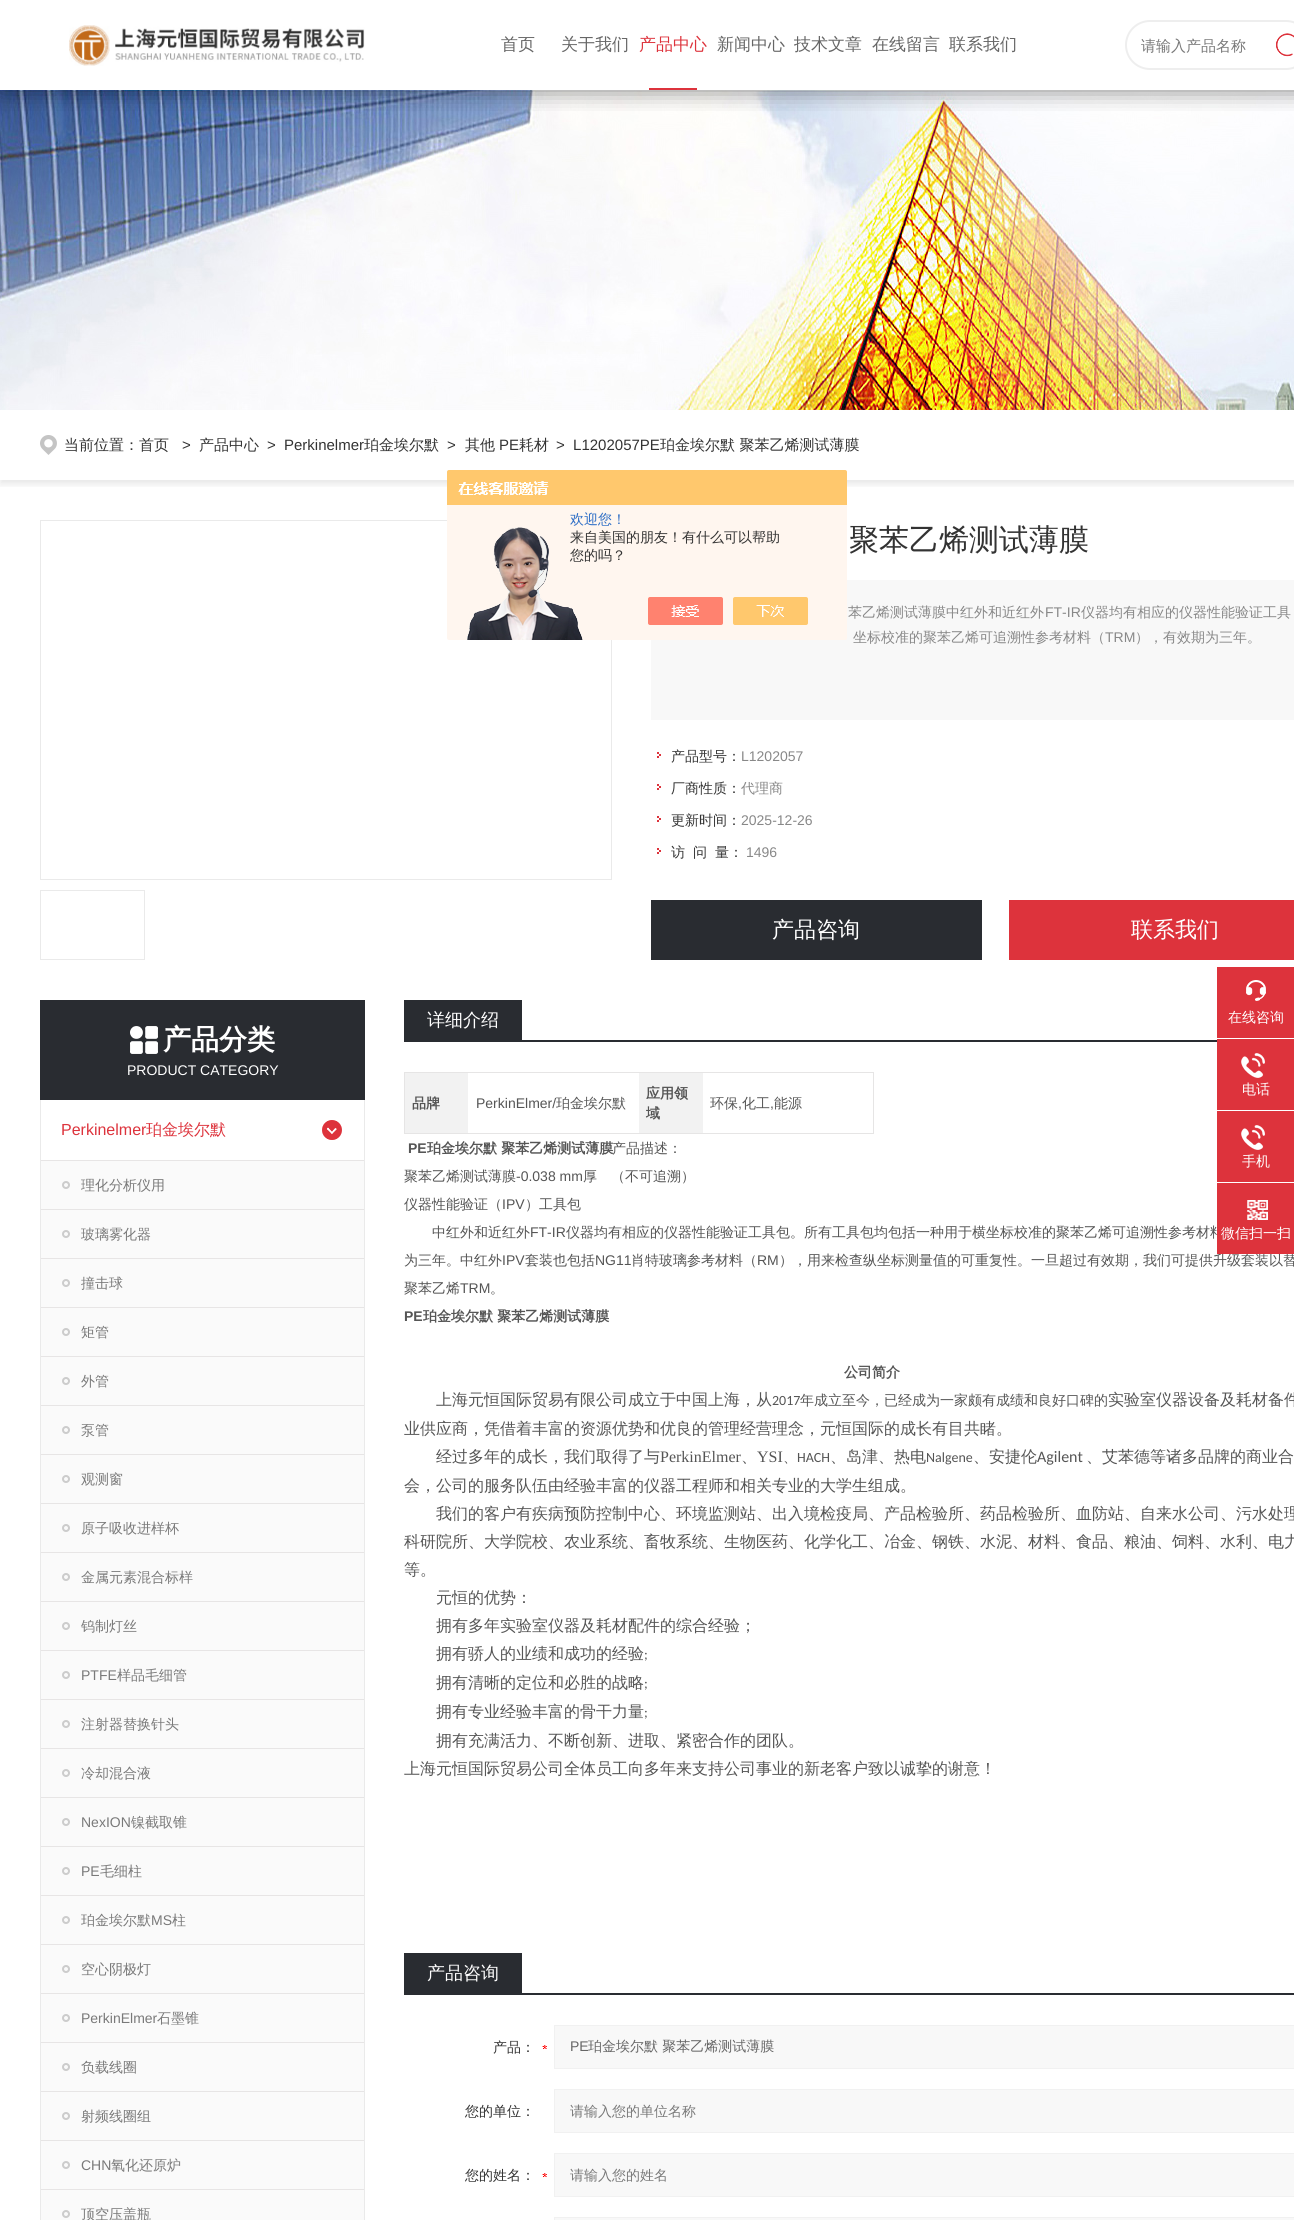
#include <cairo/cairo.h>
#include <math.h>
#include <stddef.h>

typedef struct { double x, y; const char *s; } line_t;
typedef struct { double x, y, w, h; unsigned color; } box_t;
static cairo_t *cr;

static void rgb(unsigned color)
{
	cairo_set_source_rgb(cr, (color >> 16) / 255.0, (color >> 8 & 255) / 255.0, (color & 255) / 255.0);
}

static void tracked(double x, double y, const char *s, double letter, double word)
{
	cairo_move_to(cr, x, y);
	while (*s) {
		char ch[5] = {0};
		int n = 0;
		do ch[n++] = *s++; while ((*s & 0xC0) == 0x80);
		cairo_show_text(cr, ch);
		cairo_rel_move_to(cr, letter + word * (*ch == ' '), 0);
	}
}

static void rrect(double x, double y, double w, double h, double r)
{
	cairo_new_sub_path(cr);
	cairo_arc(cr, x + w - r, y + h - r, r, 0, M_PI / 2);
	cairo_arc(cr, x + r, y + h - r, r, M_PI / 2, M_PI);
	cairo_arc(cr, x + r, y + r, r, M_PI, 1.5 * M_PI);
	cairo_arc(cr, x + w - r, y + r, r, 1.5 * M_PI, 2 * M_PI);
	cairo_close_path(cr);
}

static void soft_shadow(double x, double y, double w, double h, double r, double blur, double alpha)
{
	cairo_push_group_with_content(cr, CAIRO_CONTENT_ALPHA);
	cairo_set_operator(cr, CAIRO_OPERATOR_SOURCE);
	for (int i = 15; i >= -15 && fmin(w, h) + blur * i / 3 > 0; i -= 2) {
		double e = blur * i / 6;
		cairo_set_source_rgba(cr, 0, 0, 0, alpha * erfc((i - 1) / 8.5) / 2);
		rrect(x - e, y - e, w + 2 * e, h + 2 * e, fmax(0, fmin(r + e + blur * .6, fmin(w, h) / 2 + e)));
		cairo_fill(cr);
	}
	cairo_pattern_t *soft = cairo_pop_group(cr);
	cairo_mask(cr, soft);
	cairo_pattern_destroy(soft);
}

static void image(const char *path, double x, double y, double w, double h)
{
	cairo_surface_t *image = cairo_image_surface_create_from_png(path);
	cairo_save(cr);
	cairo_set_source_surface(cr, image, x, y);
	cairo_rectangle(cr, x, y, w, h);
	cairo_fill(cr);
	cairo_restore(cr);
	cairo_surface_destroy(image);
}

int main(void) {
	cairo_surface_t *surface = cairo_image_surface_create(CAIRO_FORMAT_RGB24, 1294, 2220);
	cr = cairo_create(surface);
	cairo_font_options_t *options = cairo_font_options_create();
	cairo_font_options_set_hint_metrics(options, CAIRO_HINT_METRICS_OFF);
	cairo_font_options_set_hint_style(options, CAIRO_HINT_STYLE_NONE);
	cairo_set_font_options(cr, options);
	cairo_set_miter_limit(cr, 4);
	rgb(0xffffff);
	cairo_paint(cr);
	image("img/3.png", 0, 90, 1294, 320);
	cairo_save(cr);
	cairo_rectangle(cr, 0, 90, 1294, 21);
	cairo_clip(cr);
	rgb(0x000000);
	soft_shadow(0, 0, 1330, 90, 0, 12, 0.5);
	cairo_restore(cr);
	image("img/1.png", 69, 25, 296, 41);
	rgb(0xdd333c);
	cairo_rectangle(cr, 649, 88, 48, 2);
	cairo_fill(cr);
	rrect(1126, 21, 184, 48, 24);
	rgb(0xeeeeee);
	cairo_stroke(cr);
	image("img/2.png", 1276, 33, 18, 24);
	cairo_save(cr);
	cairo_rectangle(cr, 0, 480, 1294, 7);
	cairo_clip(cr);
	rgb(0x000000);
	soft_shadow(0, 414, 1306, 70, 0, 4, 0.1);
	cairo_restore(cr);
	image("img/4.png", 40, 435, 17, 20);
	cairo_rectangle(cr, 40.5, 520.5, 571, 359);
	rgb(0xeaeaea);
	cairo_set_line_width(cr, 1);
	cairo_stroke(cr);
	rgb(0xf8f8f8);
	cairo_rectangle(cr, 651, 580, 643, 140);
	cairo_fill(cr);
	image("img/5.png", 447, 470, 400, 170);
	cairo_rectangle(cr, 40.5, 890.5, 104, 69);
	rgb(0xeaeaea);
	cairo_stroke(cr);
	image("img/6.png", 657, 752, 4, 6);
	image("img/6.png", 657, 784, 4, 6);
	image("img/6.png", 657, 816, 4, 6);
	image("img/6.png", 657, 848, 4, 6);
	{
		static const box_t items[] = {
			{651, 900, 331, 60, 0x292c31},
			{1009, 900, 285, 60, 0xdd333c},
			{40, 1000, 325, 100, 0x292c31},
		};
		for (size_t i = 0; i < sizeof items / sizeof *items; i++) {
			rgb(items[i].color);
			cairo_rectangle(cr, items[i].x, items[i].y, items[i].w, items[i].h);
			cairo_fill(cr);
		}
	}
	image("img/7.png", 130, 1026, 28, 28);
	rgb(0xeaeaea);
	cairo_rectangle(cr, 364, 1100, 1, 1120);
	cairo_fill(cr);
	cairo_rectangle(cr, 40, 1100, 1, 1120);
	cairo_fill(cr);
	image("img/8.png", 322, 1120, 20, 20);
	rgb(0xfafafa);
	cairo_rectangle(cr, 41, 1161, 323, 1059);
	cairo_fill(cr);
	image("img/9.png", 62, 1181, 8, 8);
	rgb(0xe7e5e5);
	cairo_rectangle(cr, 41, 1160, 323, 1);
	cairo_fill(cr);
	image("img/9.png", 62, 1230, 8, 8);
	cairo_rectangle(cr, 41, 1209, 323, 1);
	cairo_fill(cr);
	image("img/9.png", 62, 1279, 8, 8);
	cairo_rectangle(cr, 41, 1258, 323, 1);
	cairo_fill(cr);
	image("img/9.png", 62, 1328, 8, 8);
	cairo_rectangle(cr, 41, 1307, 323, 1);
	cairo_fill(cr);
	image("img/9.png", 62, 1377, 8, 8);
	cairo_rectangle(cr, 41, 1356, 323, 1);
	cairo_fill(cr);
	image("img/9.png", 62, 1426, 8, 8);
	cairo_rectangle(cr, 41, 1405, 323, 1);
	cairo_fill(cr);
	image("img/9.png", 62, 1475, 8, 8);
	cairo_rectangle(cr, 41, 1454, 323, 1);
	cairo_fill(cr);
	image("img/9.png", 62, 1524, 8, 8);
	cairo_rectangle(cr, 41, 1503, 323, 1);
	cairo_fill(cr);
	image("img/9.png", 62, 1573, 8, 8);
	cairo_rectangle(cr, 41, 1552, 323, 1);
	cairo_fill(cr);
	image("img/9.png", 62, 1622, 8, 8);
	cairo_rectangle(cr, 41, 1601, 323, 1);
	cairo_fill(cr);
	image("img/9.png", 62, 1671, 8, 8);
	cairo_rectangle(cr, 41, 1650, 323, 1);
	cairo_fill(cr);
	image("img/9.png", 62, 1720, 8, 8);
	cairo_rectangle(cr, 41, 1699, 323, 1);
	cairo_fill(cr);
	image("img/9.png", 62, 1769, 8, 8);
	cairo_rectangle(cr, 41, 1748, 323, 1);
	cairo_fill(cr);
	image("img/9.png", 62, 1818, 8, 8);
	cairo_rectangle(cr, 41, 1797, 323, 1);
	cairo_fill(cr);
	image("img/9.png", 62, 1867, 8, 8);
	cairo_rectangle(cr, 41, 1846, 323, 1);
	cairo_fill(cr);
	image("img/9.png", 62, 1916, 8, 8);
	cairo_rectangle(cr, 41, 1895, 323, 1);
	cairo_fill(cr);
	image("img/9.png", 62, 1965, 8, 8);
	cairo_rectangle(cr, 41, 1944, 323, 1);
	cairo_fill(cr);
	image("img/9.png", 62, 2014, 8, 8);
	cairo_rectangle(cr, 41, 1993, 323, 1);
	cairo_fill(cr);
	image("img/9.png", 62, 2063, 8, 8);
	cairo_rectangle(cr, 41, 2042, 323, 1);
	cairo_fill(cr);
	image("img/9.png", 62, 2112, 8, 8);
	cairo_rectangle(cr, 41, 2091, 323, 1);
	cairo_fill(cr);
	image("img/9.png", 62, 2161, 8, 8);
	cairo_rectangle(cr, 41, 2140, 323, 1);
	cairo_fill(cr);
	image("img/9.png", 62, 2210, 8, 8);
	{
		static const box_t items[] = {
			{41, 2189, 323, 1, 0xe7e5e5},
			{404, 1040, 813, 2, 0x292c31},
			{404, 1000, 118, 40, 0x292c31},
			{404, 1072, 470, 1, 0xe6e5e5},
			{873, 1072, 1, 62, 0xe6e5e5},
			{404, 1072, 1, 62, 0xe6e5e5},
			{405, 1073, 63, 60, 0xf2f2f2},
			{639, 1073, 64, 60, 0xf2f2f2},
			{404, 1133, 470, 1, 0xe6e5e5},
			{404, 1993, 890, 2, 0x292c31},
			{404, 1953, 118, 40, 0x292c31},
		};
		for (size_t i = 0; i < sizeof items / sizeof *items; i++) {
			rgb(items[i].color);
			cairo_rectangle(cr, items[i].x, items[i].y, items[i].w, items[i].h);
			cairo_fill(cr);
		}
	}
	image("img/10.png", 542, 2045, 5, 4);
	rgb(0xf8f8f8);
	cairo_rectangle(cr, 554.5, 2025.5, 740, 43);
	cairo_fill_preserve(cr);
	rgb(0xf1f1f1);
	cairo_stroke(cr);
	rgb(0xf8f8f8);
	cairo_rectangle(cr, 554.5, 2089.5, 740, 43);
	cairo_fill_preserve(cr);
	rgb(0xf1f1f1);
	cairo_stroke(cr);
	image("img/10.png", 542, 2173, 5, 4);
	rgb(0xf8f8f8);
	cairo_rectangle(cr, 554.5, 2153.5, 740, 43);
	cairo_fill_preserve(cr);
	rgb(0xf1f1f1);
	cairo_stroke(cr);
	rgb(0xf8f8f8);
	cairo_rectangle(cr, 554.5, 2217.5, 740, 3);
	cairo_fill_preserve(cr);
	rgb(0xf1f1f1);
	cairo_stroke(cr);
	rgb(0xdd333c);
	cairo_rectangle(cr, 1217, 967, 77, 71);
	cairo_fill(cr);
	image("img/11.png", 1246, 980, 20, 21);
	cairo_rectangle(cr, 1217, 1039, 77, 71);
	cairo_fill(cr);
	image("img/12.png", 1241, 1053, 24, 25);
	cairo_rectangle(cr, 1217, 1111, 77, 71);
	cairo_fill(cr);
	image("img/12.png", 1241, 1125, 24, 25);
	cairo_select_font_face(cr, "WenQuanYi Zen Hei Medium", CAIRO_FONT_SLANT_NORMAL, CAIRO_FONT_WEIGHT_NORMAL);
	cairo_set_font_size(cr, 17);
	rgb(0x666666);
	cairo_move_to(cr, 501, 50);
	cairo_show_text(cr, "首页");
	cairo_move_to(cr, 561, 50);
	cairo_show_text(cr, "关于我们");
	rgb(0xdd333c);
	cairo_move_to(cr, 639, 50);
	cairo_show_text(cr, "产品中心");
	rgb(0x666666);
	{
		static const line_t items[] = {
			{717, 50, "新闻中心"},
			{794, 50, "技术文章"},
			{872, 50, "在线留言"},
			{949, 50, "联系我们"},
		};
		for (size_t i = 0; i < sizeof items / sizeof *items; i++) {
			cairo_move_to(cr, items[i].x, items[i].y);
			cairo_show_text(cr, items[i].s);
		}
	}
	cairo_set_font_size(cr, 15);
	rgb(0x797979);
	cairo_move_to(cr, 1141, 51);
	cairo_show_text(cr, "请输入产品名称");
	rgb(0x333333);
	cairo_move_to(cr, 64, 450);
	cairo_show_text(cr, "当前位置：首页");
	cairo_select_font_face(cr, "Liberation Sans", CAIRO_FONT_SLANT_NORMAL, CAIRO_FONT_WEIGHT_NORMAL);
	cairo_move_to(cr, 182, 450);
	cairo_show_text(cr, ">");
	cairo_select_font_face(cr, "WenQuanYi Zen Hei Medium", CAIRO_FONT_SLANT_NORMAL, CAIRO_FONT_WEIGHT_NORMAL);
	cairo_move_to(cr, 199, 450);
	cairo_show_text(cr, "产品中心");
	cairo_select_font_face(cr, "Liberation Sans", CAIRO_FONT_SLANT_NORMAL, CAIRO_FONT_WEIGHT_NORMAL);
	cairo_move_to(cr, 267, 450);
	cairo_show_text(cr, ">");
	cairo_move_to(cr, 284, 450);
	cairo_show_text(cr, "Perkinelmer");
	cairo_select_font_face(cr, "WenQuanYi Zen Hei Medium", CAIRO_FONT_SLANT_NORMAL, CAIRO_FONT_WEIGHT_NORMAL);
	cairo_move_to(cr, 364, 450);
	cairo_show_text(cr, "珀金埃尔默");
	cairo_select_font_face(cr, "Liberation Sans", CAIRO_FONT_SLANT_NORMAL, CAIRO_FONT_WEIGHT_NORMAL);
	cairo_move_to(cr, 447, 450);
	cairo_show_text(cr, ">");
	cairo_select_font_face(cr, "WenQuanYi Zen Hei Medium", CAIRO_FONT_SLANT_NORMAL, CAIRO_FONT_WEIGHT_NORMAL);
	cairo_move_to(cr, 465, 450);
	cairo_show_text(cr, "其他");
	cairo_select_font_face(cr, "Liberation Sans", CAIRO_FONT_SLANT_NORMAL, CAIRO_FONT_WEIGHT_NORMAL);
	cairo_move_to(cr, 499, 450);
	cairo_show_text(cr, "PE");
	cairo_select_font_face(cr, "WenQuanYi Zen Hei Medium", CAIRO_FONT_SLANT_NORMAL, CAIRO_FONT_WEIGHT_NORMAL);
	cairo_move_to(cr, 519, 450);
	cairo_show_text(cr, "耗材");
	cairo_select_font_face(cr, "Liberation Sans", CAIRO_FONT_SLANT_NORMAL, CAIRO_FONT_WEIGHT_NORMAL);
	cairo_move_to(cr, 556, 450);
	cairo_show_text(cr, ">  L1202057PE");
	cairo_select_font_face(cr, "WenQuanYi Zen Hei Medium", CAIRO_FONT_SLANT_NORMAL, CAIRO_FONT_WEIGHT_NORMAL);
	cairo_move_to(cr, 660, 450);
	cairo_show_text(cr, "珀金埃尔默 聚苯乙烯测试薄膜");
	cairo_set_font_size(cr, 14);
	rgb(0x2e6ec6);
	cairo_move_to(cr, 570, 524);
	cairo_show_text(cr, "欢迎您！");
	rgb(0x333333);
	cairo_move_to(cr, 570, 542);
	cairo_show_text(cr, "来自美国的朋友！有什么可以帮助");
	cairo_move_to(cr, 570, 560);
	cairo_show_text(cr, "您的吗？");
	cairo_set_font_size(cr, 30);
	tracked(849, 550, "聚苯乙烯测试薄膜", 0, -1);
	cairo_set_font_size(cr, 14);
	rgb(0x888888);
	cairo_move_to(cr, 848, 617);
	cairo_show_text(cr, "苯乙烯测试薄膜中红外和近红外");
	cairo_select_font_face(cr, "Liberation Sans", CAIRO_FONT_SLANT_NORMAL, CAIRO_FONT_WEIGHT_NORMAL);
	cairo_move_to(cr, 1045, 617);
	cairo_show_text(cr, "FT-IR");
	cairo_select_font_face(cr, "WenQuanYi Zen Hei Medium", CAIRO_FONT_SLANT_NORMAL, CAIRO_FONT_WEIGHT_NORMAL);
	cairo_move_to(cr, 1081, 617);
	cairo_show_text(cr, "仪器均有相应的仪器性能验证工具");
	cairo_move_to(cr, 853, 642);
	cairo_show_text(cr, "坐标校准的聚苯乙烯可追溯性参考材料（");
	cairo_select_font_face(cr, "Liberation Sans", CAIRO_FONT_SLANT_NORMAL, CAIRO_FONT_WEIGHT_NORMAL);
	cairo_move_to(cr, 1105, 642);
	cairo_show_text(cr, "TRM");
	cairo_select_font_face(cr, "WenQuanYi Zen Hei Medium", CAIRO_FONT_SLANT_NORMAL, CAIRO_FONT_WEIGHT_NORMAL);
	cairo_move_to(cr, 1135, 642);
	cairo_show_text(cr, "），有效期为三年。");
	rgb(0x333333);
	cairo_move_to(cr, 671, 761);
	cairo_show_text(cr, "产品型号：");
	cairo_select_font_face(cr, "Liberation Sans", CAIRO_FONT_SLANT_NORMAL, CAIRO_FONT_WEIGHT_NORMAL);
	rgb(0x888888);
	cairo_move_to(cr, 741, 761);
	cairo_show_text(cr, "L1202057");
	cairo_select_font_face(cr, "WenQuanYi Zen Hei Medium", CAIRO_FONT_SLANT_NORMAL, CAIRO_FONT_WEIGHT_NORMAL);
	rgb(0x333333);
	cairo_move_to(cr, 671, 793);
	cairo_show_text(cr, "厂商性质：");
	rgb(0x888888);
	cairo_move_to(cr, 741, 793);
	cairo_show_text(cr, "代理商");
	rgb(0x333333);
	cairo_move_to(cr, 671, 825);
	cairo_show_text(cr, "更新时间：");
	cairo_select_font_face(cr, "Liberation Sans", CAIRO_FONT_SLANT_NORMAL, CAIRO_FONT_WEIGHT_NORMAL);
	rgb(0x888888);
	cairo_move_to(cr, 741, 825);
	cairo_show_text(cr, "2025-12-26");
	cairo_select_font_face(cr, "WenQuanYi Zen Hei Medium", CAIRO_FONT_SLANT_NORMAL, CAIRO_FONT_WEIGHT_NORMAL);
	rgb(0x333333);
	{
		static const line_t items[] = {
			{671, 857, "访"},
			{693, 857, "问"},
			{715, 857, "量："},
		};
		for (size_t i = 0; i < sizeof items / sizeof *items; i++) {
			cairo_move_to(cr, items[i].x, items[i].y);
			cairo_show_text(cr, items[i].s);
		}
	}
	cairo_select_font_face(cr, "Liberation Sans", CAIRO_FONT_SLANT_NORMAL, CAIRO_FONT_WEIGHT_NORMAL);
	rgb(0x888888);
	cairo_move_to(cr, 746, 857);
	cairo_show_text(cr, "1496");
	cairo_select_font_face(cr, "WenQuanYi Zen Hei Medium", CAIRO_FONT_SLANT_NORMAL, CAIRO_FONT_WEIGHT_NORMAL);
	cairo_set_font_size(cr, 22);
	rgb(0xffffff);
	cairo_move_to(cr, 772, 937);
	cairo_show_text(cr, "产品咨询");
	cairo_move_to(cr, 1131, 937);
	cairo_show_text(cr, "联系我们");
	cairo_select_font_face(cr, "WenQuanYi Zen Hei", CAIRO_FONT_SLANT_NORMAL, CAIRO_FONT_WEIGHT_BOLD);
	cairo_set_font_size(cr, 28);
	cairo_move_to(cr, 163, 1049);
	cairo_show_text(cr, "产品分类");
	cairo_select_font_face(cr, "Liberation Sans", CAIRO_FONT_SLANT_NORMAL, CAIRO_FONT_WEIGHT_NORMAL);
	cairo_set_font_size(cr, 14);
	cairo_move_to(cr, 127, 1075);
	cairo_show_text(cr, "PRODUCT CATEGORY");
	cairo_set_font_size(cr, 16);
	rgb(0xdd333c);
	cairo_move_to(cr, 61, 1135);
	cairo_show_text(cr, "Perkinelmer");
	cairo_select_font_face(cr, "WenQuanYi Zen Hei Medium", CAIRO_FONT_SLANT_NORMAL, CAIRO_FONT_WEIGHT_NORMAL);
	cairo_move_to(cr, 146, 1135);
	cairo_show_text(cr, "珀金埃尔默");
	cairo_set_font_size(cr, 14);
	rgb(0x797979);
	{
		static const line_t items[] = {
			{81, 1190, "理化分析仪用"},
			{81, 1239, "玻璃雾化器"},
			{81, 1288, "撞击球"},
			{81, 1337, "矩管"},
			{81, 1386, "外管"},
			{81, 1435, "泵管"},
			{81, 1484, "观测窗"},
			{81, 1533, "原子吸收进样杯"},
			{81, 1582, "金属元素混合标样"},
			{81, 1631, "钨制灯丝"},
		};
		for (size_t i = 0; i < sizeof items / sizeof *items; i++) {
			cairo_move_to(cr, items[i].x, items[i].y);
			cairo_show_text(cr, items[i].s);
		}
	}
	cairo_select_font_face(cr, "Liberation Sans", CAIRO_FONT_SLANT_NORMAL, CAIRO_FONT_WEIGHT_NORMAL);
	cairo_move_to(cr, 81, 1680);
	cairo_show_text(cr, "PTFE");
	cairo_select_font_face(cr, "WenQuanYi Zen Hei Medium", CAIRO_FONT_SLANT_NORMAL, CAIRO_FONT_WEIGHT_NORMAL);
	{
		static const line_t items[] = {
			{117, 1680, "样品毛细管"},
			{81, 1729, "注射器替换针头"},
			{81, 1778, "冷却混合液"},
		};
		for (size_t i = 0; i < sizeof items / sizeof *items; i++) {
			cairo_move_to(cr, items[i].x, items[i].y);
			cairo_show_text(cr, items[i].s);
		}
	}
	cairo_select_font_face(cr, "Liberation Sans", CAIRO_FONT_SLANT_NORMAL, CAIRO_FONT_WEIGHT_NORMAL);
	cairo_move_to(cr, 81, 1827);
	cairo_show_text(cr, "NexION");
	cairo_select_font_face(cr, "WenQuanYi Zen Hei Medium", CAIRO_FONT_SLANT_NORMAL, CAIRO_FONT_WEIGHT_NORMAL);
	cairo_move_to(cr, 131, 1827);
	cairo_show_text(cr, "镍截取锥");
	cairo_select_font_face(cr, "Liberation Sans", CAIRO_FONT_SLANT_NORMAL, CAIRO_FONT_WEIGHT_NORMAL);
	cairo_move_to(cr, 81, 1876);
	cairo_show_text(cr, "PE");
	cairo_select_font_face(cr, "WenQuanYi Zen Hei Medium", CAIRO_FONT_SLANT_NORMAL, CAIRO_FONT_WEIGHT_NORMAL);
	cairo_move_to(cr, 100, 1876);
	cairo_show_text(cr, "毛细柱");
	cairo_move_to(cr, 81, 1925);
	cairo_show_text(cr, "珀金埃尔默");
	cairo_select_font_face(cr, "Liberation Sans", CAIRO_FONT_SLANT_NORMAL, CAIRO_FONT_WEIGHT_NORMAL);
	cairo_move_to(cr, 151, 1925);
	cairo_show_text(cr, "MS");
	cairo_select_font_face(cr, "WenQuanYi Zen Hei Medium", CAIRO_FONT_SLANT_NORMAL, CAIRO_FONT_WEIGHT_NORMAL);
	cairo_move_to(cr, 172, 1925);
	cairo_show_text(cr, "柱");
	cairo_move_to(cr, 81, 1974);
	cairo_show_text(cr, "空心阴极灯");
	cairo_select_font_face(cr, "Liberation Sans", CAIRO_FONT_SLANT_NORMAL, CAIRO_FONT_WEIGHT_NORMAL);
	cairo_move_to(cr, 81, 2023);
	cairo_show_text(cr, "PerkinElmer");
	cairo_select_font_face(cr, "WenQuanYi Zen Hei Medium", CAIRO_FONT_SLANT_NORMAL, CAIRO_FONT_WEIGHT_NORMAL);
	{
		static const line_t items[] = {
			{157, 2023, "石墨锥"},
			{81, 2072, "负载线圈"},
			{81, 2121, "射频线圈组"},
		};
		for (size_t i = 0; i < sizeof items / sizeof *items; i++) {
			cairo_move_to(cr, items[i].x, items[i].y);
			cairo_show_text(cr, items[i].s);
		}
	}
	cairo_select_font_face(cr, "Liberation Sans", CAIRO_FONT_SLANT_NORMAL, CAIRO_FONT_WEIGHT_NORMAL);
	cairo_move_to(cr, 81, 2170);
	cairo_show_text(cr, "CHN");
	cairo_select_font_face(cr, "WenQuanYi Zen Hei Medium", CAIRO_FONT_SLANT_NORMAL, CAIRO_FONT_WEIGHT_NORMAL);
	cairo_move_to(cr, 111, 2170);
	cairo_show_text(cr, "氧化还原炉");
	cairo_move_to(cr, 81, 2219);
	cairo_show_text(cr, "顶空压盖瓶");
	cairo_set_font_size(cr, 18);
	rgb(0xffffff);
	cairo_move_to(cr, 427, 1026);
	cairo_show_text(cr, "详细介绍");
	cairo_select_font_face(cr, "WenQuanYi Zen Hei", CAIRO_FONT_SLANT_NORMAL, CAIRO_FONT_WEIGHT_BOLD);
	cairo_set_font_size(cr, 14);
	rgb(0x555555);
	cairo_move_to(cr, 412, 1108);
	cairo_show_text(cr, "品牌");
	cairo_select_font_face(cr, "Liberation Sans", CAIRO_FONT_SLANT_NORMAL, CAIRO_FONT_WEIGHT_NORMAL);
	cairo_move_to(cr, 476, 1108);
	cairo_show_text(cr, "PerkinElmer/");
	cairo_select_font_face(cr, "WenQuanYi Zen Hei Medium", CAIRO_FONT_SLANT_NORMAL, CAIRO_FONT_WEIGHT_NORMAL);
	cairo_move_to(cr, 556, 1108);
	cairo_show_text(cr, "珀金埃尔默");
	cairo_select_font_face(cr, "WenQuanYi Zen Hei", CAIRO_FONT_SLANT_NORMAL, CAIRO_FONT_WEIGHT_BOLD);
	cairo_move_to(cr, 646, 1098);
	cairo_show_text(cr, "应用领");
	cairo_move_to(cr, 646, 1118);
	cairo_show_text(cr, "域");
	cairo_select_font_face(cr, "WenQuanYi Zen Hei Medium", CAIRO_FONT_SLANT_NORMAL, CAIRO_FONT_WEIGHT_NORMAL);
	cairo_move_to(cr, 710, 1108);
	cairo_show_text(cr, "环保");
	cairo_select_font_face(cr, "Liberation Sans", CAIRO_FONT_SLANT_NORMAL, CAIRO_FONT_WEIGHT_NORMAL);
	cairo_move_to(cr, 738, 1108);
	cairo_show_text(cr, ",");
	cairo_select_font_face(cr, "WenQuanYi Zen Hei Medium", CAIRO_FONT_SLANT_NORMAL, CAIRO_FONT_WEIGHT_NORMAL);
	cairo_move_to(cr, 742, 1108);
	cairo_show_text(cr, "化工");
	cairo_select_font_face(cr, "Liberation Sans", CAIRO_FONT_SLANT_NORMAL, CAIRO_FONT_WEIGHT_NORMAL);
	cairo_move_to(cr, 770, 1108);
	cairo_show_text(cr, ",");
	cairo_select_font_face(cr, "WenQuanYi Zen Hei Medium", CAIRO_FONT_SLANT_NORMAL, CAIRO_FONT_WEIGHT_NORMAL);
	cairo_move_to(cr, 774, 1108);
	cairo_show_text(cr, "能源");
	cairo_select_font_face(cr, "Liberation Sans", CAIRO_FONT_SLANT_NORMAL, CAIRO_FONT_WEIGHT_BOLD);
	cairo_move_to(cr, 408, 1153);
	cairo_show_text(cr, "PE");
	cairo_select_font_face(cr, "WenQuanYi Zen Hei", CAIRO_FONT_SLANT_NORMAL, CAIRO_FONT_WEIGHT_BOLD);
	cairo_move_to(cr, 427, 1153);
	cairo_show_text(cr, "珀金埃尔默 聚苯乙烯测试薄膜");
	cairo_select_font_face(cr, "WenQuanYi Zen Hei Medium", CAIRO_FONT_SLANT_NORMAL, CAIRO_FONT_WEIGHT_NORMAL);
	cairo_move_to(cr, 612, 1153);
	cairo_show_text(cr, "产品描述：");
	cairo_move_to(cr, 404, 1181);
	cairo_show_text(cr, "聚苯乙烯测试薄膜");
	cairo_select_font_face(cr, "Liberation Sans", CAIRO_FONT_SLANT_NORMAL, CAIRO_FONT_WEIGHT_NORMAL);
	cairo_move_to(cr, 516, 1181);
	cairo_show_text(cr, "-0.038 mm");
	cairo_select_font_face(cr, "WenQuanYi Zen Hei Medium", CAIRO_FONT_SLANT_NORMAL, CAIRO_FONT_WEIGHT_NORMAL);
	cairo_move_to(cr, 583, 1181);
	cairo_show_text(cr, "厚　（不可追溯）");
	cairo_move_to(cr, 404, 1209);
	cairo_show_text(cr, "仪器性能验证（");
	cairo_select_font_face(cr, "Liberation Sans", CAIRO_FONT_SLANT_NORMAL, CAIRO_FONT_WEIGHT_NORMAL);
	cairo_move_to(cr, 502, 1209);
	cairo_show_text(cr, "IPV");
	cairo_select_font_face(cr, "WenQuanYi Zen Hei Medium", CAIRO_FONT_SLANT_NORMAL, CAIRO_FONT_WEIGHT_NORMAL);
	cairo_move_to(cr, 525, 1209);
	cairo_show_text(cr, "）工具包");
	cairo_move_to(cr, 432, 1237);
	cairo_show_text(cr, "中红外和近红外");
	cairo_select_font_face(cr, "Liberation Sans", CAIRO_FONT_SLANT_NORMAL, CAIRO_FONT_WEIGHT_NORMAL);
	cairo_move_to(cr, 530, 1237);
	cairo_show_text(cr, "FT-IR");
	cairo_select_font_face(cr, "WenQuanYi Zen Hei Medium", CAIRO_FONT_SLANT_NORMAL, CAIRO_FONT_WEIGHT_NORMAL);
	cairo_move_to(cr, 566, 1237);
	cairo_show_text(cr, "仪器均有相应的仪器性能验证工具包。所有工具包均包括一种用于横坐标校准的聚苯乙烯可追溯性参考材料");
	cairo_move_to(cr, 404, 1265);
	cairo_show_text(cr, "为三年。中红外");
	cairo_select_font_face(cr, "Liberation Sans", CAIRO_FONT_SLANT_NORMAL, CAIRO_FONT_WEIGHT_NORMAL);
	cairo_move_to(cr, 502, 1265);
	cairo_show_text(cr, "IPV");
	cairo_select_font_face(cr, "WenQuanYi Zen Hei Medium", CAIRO_FONT_SLANT_NORMAL, CAIRO_FONT_WEIGHT_NORMAL);
	cairo_move_to(cr, 525, 1265);
	cairo_show_text(cr, "套装也包括");
	cairo_select_font_face(cr, "Liberation Sans", CAIRO_FONT_SLANT_NORMAL, CAIRO_FONT_WEIGHT_NORMAL);
	cairo_move_to(cr, 595, 1265);
	cairo_show_text(cr, "NG11");
	cairo_select_font_face(cr, "WenQuanYi Zen Hei Medium", CAIRO_FONT_SLANT_NORMAL, CAIRO_FONT_WEIGHT_NORMAL);
	cairo_move_to(cr, 631, 1265);
	cairo_show_text(cr, "肖特玻璃参考材料（");
	cairo_select_font_face(cr, "Liberation Sans", CAIRO_FONT_SLANT_NORMAL, CAIRO_FONT_WEIGHT_NORMAL);
	cairo_move_to(cr, 757, 1265);
	cairo_show_text(cr, "RM");
	cairo_select_font_face(cr, "WenQuanYi Zen Hei Medium", CAIRO_FONT_SLANT_NORMAL, CAIRO_FONT_WEIGHT_NORMAL);
	cairo_move_to(cr, 779, 1265);
	cairo_show_text(cr, "），用来检查纵坐标测量值的可重复性。一旦超过有效期，我们可提供升级套装以替");
	cairo_move_to(cr, 404, 1293);
	cairo_show_text(cr, "聚苯乙烯");
	cairo_select_font_face(cr, "Liberation Sans", CAIRO_FONT_SLANT_NORMAL, CAIRO_FONT_WEIGHT_NORMAL);
	cairo_move_to(cr, 460, 1293);
	cairo_show_text(cr, "TRM");
	cairo_select_font_face(cr, "WenQuanYi Zen Hei Medium", CAIRO_FONT_SLANT_NORMAL, CAIRO_FONT_WEIGHT_NORMAL);
	cairo_move_to(cr, 490, 1293);
	cairo_show_text(cr, "。");
	cairo_select_font_face(cr, "Liberation Sans", CAIRO_FONT_SLANT_NORMAL, CAIRO_FONT_WEIGHT_BOLD);
	cairo_move_to(cr, 404, 1321);
	cairo_show_text(cr, "PE");
	cairo_select_font_face(cr, "WenQuanYi Zen Hei", CAIRO_FONT_SLANT_NORMAL, CAIRO_FONT_WEIGHT_BOLD);
	cairo_move_to(cr, 423, 1321);
	cairo_show_text(cr, "珀金埃尔默 聚苯乙烯测试薄膜");
	cairo_move_to(cr, 844, 1377);
	cairo_show_text(cr, "公司简介");
	cairo_select_font_face(cr, "WenQuanYi Zen Hei Medium", CAIRO_FONT_SLANT_NORMAL, CAIRO_FONT_WEIGHT_NORMAL);
	cairo_set_font_size(cr, 16);
	cairo_move_to(cr, 436, 1405);
	cairo_show_text(cr, "上海元恒国际贸易有限公司成立于中国上海，从");
	cairo_select_font_face(cr, "Carlito", CAIRO_FONT_SLANT_NORMAL, CAIRO_FONT_WEIGHT_NORMAL);
	cairo_set_font_size(cr, 14);
	cairo_move_to(cr, 772, 1405);
	cairo_show_text(cr, "2017");
	cairo_select_font_face(cr, "WenQuanYi Zen Hei Medium", CAIRO_FONT_SLANT_NORMAL, CAIRO_FONT_WEIGHT_NORMAL);
	cairo_move_to(cr, 800, 1405);
	cairo_show_text(cr, "年成立至今，已经成为一家颇有成绩和良好口碑的");
	cairo_set_font_size(cr, 16);
	{
		static const line_t items[] = {
			{1108, 1405, "实验室仪器设备及耗材备件"},
			{404, 1434, "业供应商，凭借着丰富的资源优势和优良的管理经营理念，元恒国际的成长有目共睹。"},
			{436, 1462, "经过多年的成长，我们取得了与"},
		};
		for (size_t i = 0; i < sizeof items / sizeof *items; i++) {
			cairo_move_to(cr, items[i].x, items[i].y);
			cairo_show_text(cr, items[i].s);
		}
	}
	cairo_select_font_face(cr, "Liberation Serif", CAIRO_FONT_SLANT_NORMAL, CAIRO_FONT_WEIGHT_NORMAL);
	cairo_move_to(cr, 660, 1462);
	cairo_show_text(cr, "PerkinElmer");
	cairo_select_font_face(cr, "WenQuanYi Zen Hei Medium", CAIRO_FONT_SLANT_NORMAL, CAIRO_FONT_WEIGHT_NORMAL);
	cairo_move_to(cr, 741, 1462);
	cairo_show_text(cr, "、");
	cairo_select_font_face(cr, "Liberation Serif", CAIRO_FONT_SLANT_NORMAL, CAIRO_FONT_WEIGHT_NORMAL);
	cairo_move_to(cr, 757, 1462);
	cairo_show_text(cr, "YSI");
	cairo_select_font_face(cr, "WenQuanYi Zen Hei Medium", CAIRO_FONT_SLANT_NORMAL, CAIRO_FONT_WEIGHT_NORMAL);
	cairo_set_font_size(cr, 14);
	cairo_move_to(cr, 783, 1462);
	cairo_show_text(cr, "、");
	cairo_select_font_face(cr, "Carlito", CAIRO_FONT_SLANT_NORMAL, CAIRO_FONT_WEIGHT_NORMAL);
	cairo_move_to(cr, 797, 1462);
	cairo_show_text(cr, "HACH");
	cairo_select_font_face(cr, "WenQuanYi Zen Hei Medium", CAIRO_FONT_SLANT_NORMAL, CAIRO_FONT_WEIGHT_NORMAL);
	cairo_set_font_size(cr, 16);
	cairo_move_to(cr, 830, 1462);
	cairo_show_text(cr, "、岛津、热电");
	cairo_select_font_face(cr, "Carlito", CAIRO_FONT_SLANT_NORMAL, CAIRO_FONT_WEIGHT_NORMAL);
	cairo_set_font_size(cr, 14);
	cairo_move_to(cr, 926, 1462);
	cairo_show_text(cr, "Nalgene");
	cairo_select_font_face(cr, "WenQuanYi Zen Hei Medium", CAIRO_FONT_SLANT_NORMAL, CAIRO_FONT_WEIGHT_NORMAL);
	cairo_set_font_size(cr, 16);
	cairo_move_to(cr, 973, 1462);
	cairo_show_text(cr, "、安捷伦");
	cairo_select_font_face(cr, "Carlito", CAIRO_FONT_SLANT_NORMAL, CAIRO_FONT_WEIGHT_NORMAL);
	cairo_move_to(cr, 1037, 1462);
	cairo_show_text(cr, "Agilent");
	cairo_select_font_face(cr, "WenQuanYi Zen Hei Medium", CAIRO_FONT_SLANT_NORMAL, CAIRO_FONT_WEIGHT_NORMAL);
	{
		static const line_t items[] = {
			{1086, 1462, "、艾苯德等诸多品牌的商业合"},
			{404, 1491, "会，公司的服务队伍由经验丰富的仪器工程师和相关专业的大学生组成。"},
			{436, 1519, "我们的客户有疾病预防控制中心、环境监测站、出入境检疫局、产品检验所、药品检验所、血防站、自来水公司、污水处理"},
			{404, 1547, "科研院所、大学院校、农业系统、畜牧系统、生物医药、化学化工、冶金、钢铁、水泥、材料、食品、粮油、饲料、水利、电力"},
			{404, 1575, "等。"},
			{436, 1603, "元恒的优势："},
			{436, 1631, "拥有多年实验室仪器及耗材配件的综合经验；"},
			{436, 1659, "拥有骄人的业绩和成功的经验"},
		};
		for (size_t i = 0; i < sizeof items / sizeof *items; i++) {
			cairo_move_to(cr, items[i].x, items[i].y);
			cairo_show_text(cr, items[i].s);
		}
	}
	cairo_select_font_face(cr, "Carlito", CAIRO_FONT_SLANT_NORMAL, CAIRO_FONT_WEIGHT_NORMAL);
	cairo_set_font_size(cr, 14);
	cairo_move_to(cr, 644, 1659);
	cairo_show_text(cr, ";");
	cairo_select_font_face(cr, "WenQuanYi Zen Hei Medium", CAIRO_FONT_SLANT_NORMAL, CAIRO_FONT_WEIGHT_NORMAL);
	cairo_set_font_size(cr, 16);
	cairo_move_to(cr, 436, 1688);
	cairo_show_text(cr, "拥有清晰的定位和必胜的战略");
	cairo_select_font_face(cr, "Carlito", CAIRO_FONT_SLANT_NORMAL, CAIRO_FONT_WEIGHT_NORMAL);
	cairo_set_font_size(cr, 14);
	cairo_move_to(cr, 644, 1688);
	cairo_show_text(cr, ";");
	cairo_select_font_face(cr, "WenQuanYi Zen Hei Medium", CAIRO_FONT_SLANT_NORMAL, CAIRO_FONT_WEIGHT_NORMAL);
	cairo_set_font_size(cr, 16);
	cairo_move_to(cr, 436, 1717);
	cairo_show_text(cr, "拥有专业经验丰富的骨干力量");
	cairo_select_font_face(cr, "Carlito", CAIRO_FONT_SLANT_NORMAL, CAIRO_FONT_WEIGHT_NORMAL);
	cairo_set_font_size(cr, 14);
	cairo_move_to(cr, 644, 1717);
	cairo_show_text(cr, ";");
	cairo_select_font_face(cr, "WenQuanYi Zen Hei Medium", CAIRO_FONT_SLANT_NORMAL, CAIRO_FONT_WEIGHT_NORMAL);
	cairo_set_font_size(cr, 16);
	cairo_move_to(cr, 436, 1746);
	cairo_show_text(cr, "拥有充满活力、不断创新、进取、紧密合作的团队。");
	cairo_move_to(cr, 404, 1774);
	cairo_show_text(cr, "上海元恒国际贸易公司全体员工向多年来支持公司事业的新老客户致以诚挚的谢意！");
	cairo_set_font_size(cr, 18);
	rgb(0xffffff);
	cairo_move_to(cr, 427, 1979);
	cairo_show_text(cr, "产品咨询");
	cairo_set_font_size(cr, 14);
	rgb(0x333333);
	cairo_move_to(cr, 493, 2052);
	cairo_show_text(cr, "产品：");
	cairo_select_font_face(cr, "Liberation Sans", CAIRO_FONT_SLANT_NORMAL, CAIRO_FONT_WEIGHT_NORMAL);
	rgb(0x666666);
	cairo_move_to(cr, 570, 2051);
	cairo_show_text(cr, "PE");
	cairo_select_font_face(cr, "WenQuanYi Zen Hei Medium", CAIRO_FONT_SLANT_NORMAL, CAIRO_FONT_WEIGHT_NORMAL);
	cairo_move_to(cr, 588, 2051);
	cairo_show_text(cr, "珀金埃尔默 聚苯乙烯测试薄膜");
	rgb(0x333333);
	cairo_move_to(cr, 465, 2116);
	cairo_show_text(cr, "您的单位：");
	rgb(0x797979);
	cairo_move_to(cr, 570, 2116);
	cairo_show_text(cr, "请输入您的单位名称");
	rgb(0x333333);
	cairo_move_to(cr, 465, 2180);
	cairo_show_text(cr, "您的姓名：");
	rgb(0x797979);
	cairo_move_to(cr, 570, 2180);
	cairo_show_text(cr, "请输入您的姓名");
	rgb(0xffffff);
	{
		static const line_t items[] = {
			{1228, 1022, "在线咨询"},
			{1242, 1094, "电话"},
			{1242, 1166, "手机"},
		};
		for (size_t i = 0; i < sizeof items / sizeof *items; i++) {
			cairo_move_to(cr, items[i].x, items[i].y);
			cairo_show_text(cr, items[i].s);
		}
	}
	rgb(0xdd333c);
	cairo_rectangle(cr, 1217, 1183, 77, 71);
	cairo_fill(cr);
	image("img/13.png", 1247, 1200, 21, 20);
	rgb(0xffffff);
	cairo_move_to(cr, 1221, 1238);
	cairo_show_text(cr, "微信扫一扫");
	cairo_surface_write_to_png(surface, "page.png");
	cairo_font_options_destroy(options);
	cairo_destroy(cr);
	cairo_surface_destroy(surface);
	return 0;
}
